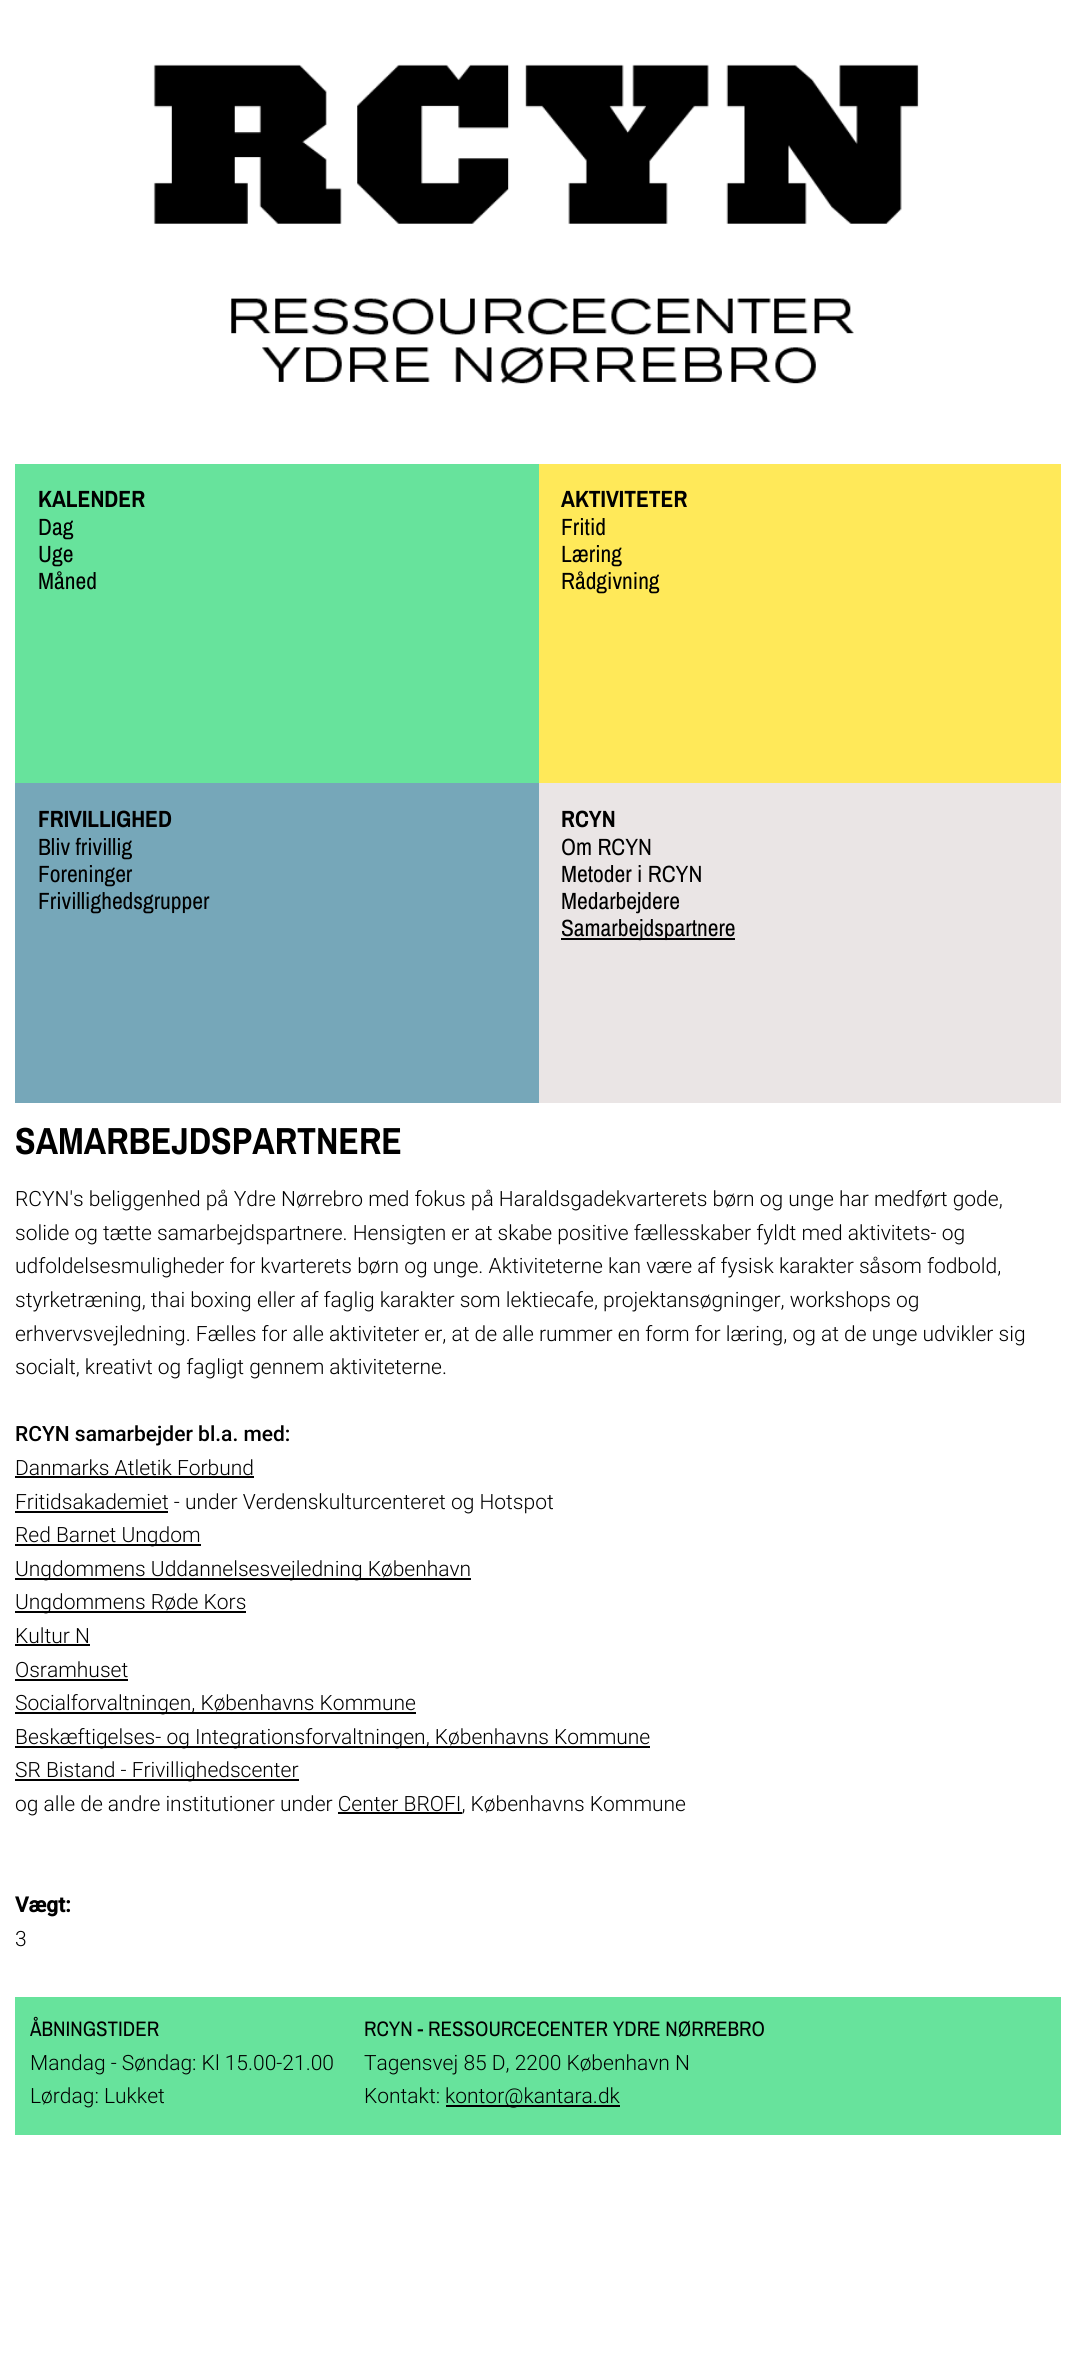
#include <cairo/cairo.h>
#include <math.h>
#include <stddef.h>

typedef struct { double x, y; const char *s; } line_t;
typedef struct { double x, y, w, h; unsigned color; } box_t;
static cairo_t *cr;

static void rgb(unsigned color)
{
	cairo_set_source_rgb(cr, (color >> 16) / 255.0, (color >> 8 & 255) / 255.0, (color & 255) / 255.0);
}

static void image(const char *path, double x, double y, double w, double h)
{
	cairo_surface_t *image = cairo_image_surface_create_from_png(path);
	cairo_save(cr);
	cairo_set_source_surface(cr, image, x, y);
	cairo_rectangle(cr, x, y, w, h);
	cairo_fill(cr);
	cairo_restore(cr);
	cairo_surface_destroy(image);
}

int main(void) {
	cairo_surface_t *surface = cairo_image_surface_create(CAIRO_FORMAT_RGB24, 1075, 2375);
	cr = cairo_create(surface);
	cairo_font_options_t *options = cairo_font_options_create();
	cairo_font_options_set_hint_metrics(options, CAIRO_HINT_METRICS_OFF);
	cairo_font_options_set_hint_style(options, CAIRO_HINT_STYLE_NONE);
	cairo_set_font_options(cr, options);
	cairo_set_miter_limit(cr, 4);
	rgb(0xffffff);
	cairo_paint(cr);
	image("img/1.png", 153, 64, 766, 320);
	{
		static const box_t items[] = {
			{15, 464, 524, 319, 0x67e39c},
			{539, 464, 522, 319, 0xffe959},
			{15, 783, 524, 320, 0x76a7b9},
			{539, 783, 522, 320, 0xeae5e5},
			{561, 938, 174, 2, 0x000000},
			{15, 1476, 239, 2, 0x000000},
			{15, 1511, 153, 2, 0x000000},
			{15, 1544, 186, 2, 0x000000},
			{15, 1578, 456, 2, 0x000000},
			{15, 1611, 231, 2, 0x000000},
			{15, 1644, 75, 2, 0x000000},
			{15, 1679, 113, 2, 0x000000},
			{15, 1712, 401, 2, 0x000000},
			{15, 1746, 635, 2, 0x000000},
			{15, 1779, 284, 2, 0x000000},
			{338, 1812, 124, 2, 0x000000},
			{15, 1997, 1046, 138, 0x67e39c},
			{446, 2105, 174, 2, 0x000000},
		};
		for (size_t i = 0; i < sizeof items / sizeof *items; i++) {
			rgb(items[i].color);
			cairo_rectangle(cr, items[i].x, items[i].y, items[i].w, items[i].h);
			cairo_fill(cr);
		}
	}
	cairo_select_font_face(cr, "Archivo Narrow", CAIRO_FONT_SLANT_NORMAL, CAIRO_FONT_WEIGHT_BOLD);
	cairo_set_font_size(cr, 23.5);
	cairo_move_to(cr, 38, 507);
	cairo_show_text(cr, "KALENDER");
	cairo_select_font_face(cr, "Archivo Narrow", CAIRO_FONT_SLANT_NORMAL, CAIRO_FONT_WEIGHT_NORMAL);
	{
		static const line_t items[] = {
			{38, 535, "Dag"},
			{38, 562, "Uge"},
			{38, 589, "Måned"},
		};
		for (size_t i = 0; i < sizeof items / sizeof *items; i++) {
			cairo_move_to(cr, items[i].x, items[i].y);
			cairo_show_text(cr, items[i].s);
		}
	}
	cairo_select_font_face(cr, "Archivo Narrow", CAIRO_FONT_SLANT_NORMAL, CAIRO_FONT_WEIGHT_BOLD);
	cairo_move_to(cr, 561, 507);
	cairo_show_text(cr, "AKTIVITETER");
	cairo_select_font_face(cr, "Archivo Narrow", CAIRO_FONT_SLANT_NORMAL, CAIRO_FONT_WEIGHT_NORMAL);
	{
		static const line_t items[] = {
			{561, 535, "Fritid"},
			{561, 562, "Læring"},
			{561, 589, "Rådgivning"},
		};
		for (size_t i = 0; i < sizeof items / sizeof *items; i++) {
			cairo_move_to(cr, items[i].x, items[i].y);
			cairo_show_text(cr, items[i].s);
		}
	}
	cairo_select_font_face(cr, "Archivo Narrow", CAIRO_FONT_SLANT_NORMAL, CAIRO_FONT_WEIGHT_BOLD);
	cairo_move_to(cr, 38, 827);
	cairo_show_text(cr, "FRIVILLIGHED");
	cairo_select_font_face(cr, "Archivo Narrow", CAIRO_FONT_SLANT_NORMAL, CAIRO_FONT_WEIGHT_NORMAL);
	{
		static const line_t items[] = {
			{38, 855, "Bliv frivillig"},
			{38, 882, "Foreninger"},
			{38, 909, "Frivillighedsgrupper"},
		};
		for (size_t i = 0; i < sizeof items / sizeof *items; i++) {
			cairo_move_to(cr, items[i].x, items[i].y);
			cairo_show_text(cr, items[i].s);
		}
	}
	cairo_select_font_face(cr, "Archivo Narrow", CAIRO_FONT_SLANT_NORMAL, CAIRO_FONT_WEIGHT_BOLD);
	cairo_move_to(cr, 561, 827);
	cairo_show_text(cr, "RCYN");
	cairo_select_font_face(cr, "Archivo Narrow", CAIRO_FONT_SLANT_NORMAL, CAIRO_FONT_WEIGHT_NORMAL);
	{
		static const line_t items[] = {
			{561, 855, "Om RCYN"},
			{561, 882, "Metoder i RCYN"},
			{561, 909, "Medarbejdere"},
			{561, 936, "Samarbejdspartnere"},
		};
		for (size_t i = 0; i < sizeof items / sizeof *items; i++) {
			cairo_move_to(cr, items[i].x, items[i].y);
			cairo_show_text(cr, items[i].s);
		}
	}
	cairo_select_font_face(cr, "Archivo Narrow", CAIRO_FONT_SLANT_NORMAL, CAIRO_FONT_WEIGHT_BOLD);
	cairo_set_font_size(cr, 37.75);
	cairo_move_to(cr, 15, 1154);
	cairo_show_text(cr, "SAMARBEJDSPARTNERE");
	cairo_select_font_face(cr, "Roboto Light", CAIRO_FONT_SLANT_NORMAL, CAIRO_FONT_WEIGHT_NORMAL);
	cairo_set_font_size(cr, 21);
	{
		static const line_t items[] = {
			{15, 1206, "RCYN's beliggenhed på Ydre Nørrebro med fokus på Haraldsgadekvarterets børn og unge har medført gode,"},
			{15, 1240, "solide og tætte samarbejdspartnere. Hensigten er at skabe positive fællesskaber fyldt med aktivitets- og"},
			{15, 1273, "udfoldelsesmuligheder for kvarterets børn og unge. Aktiviteterne kan være af fysisk karakter såsom fodbold,"},
			{15, 1307, "styrketræning, thai boxing eller af faglig karakter som lektiecafe, projektansøgninger, workshops og"},
			{15, 1341, "erhvervsvejledning. Fælles for alle aktiviteter er, at de alle rummer en form for læring, og at de unge udvikler sig"},
			{15, 1374, "socialt, kreativt og fagligt gennem aktiviteterne."},
		};
		for (size_t i = 0; i < sizeof items / sizeof *items; i++) {
			cairo_move_to(cr, items[i].x, items[i].y);
			cairo_show_text(cr, items[i].s);
		}
	}
	cairo_select_font_face(cr, "Roboto Medium", CAIRO_FONT_SLANT_NORMAL, CAIRO_FONT_WEIGHT_NORMAL);
	cairo_move_to(cr, 15, 1441);
	cairo_show_text(cr, "RCYN samarbejder bl.a. med:");
	cairo_select_font_face(cr, "Roboto Light", CAIRO_FONT_SLANT_NORMAL, CAIRO_FONT_WEIGHT_NORMAL);
	{
		static const line_t items[] = {
			{15, 1475, "Danmarks Atletik Forbund"},
			{15, 1509, "Fritidsakademiet - under Verdenskulturcenteret og Hotspot"},
			{15, 1542, "Red Barnet Ungdom"},
			{15, 1576, "Ungdommens Uddannelsesvejledning København"},
			{15, 1609, "Ungdommens Røde Kors"},
			{15, 1643, "Kultur N"},
			{15, 1677, "Osramhuset"},
			{15, 1710, "Socialforvaltningen, Københavns Kommune"},
			{15, 1744, "Beskæftigelses- og Integrationsforvaltningen, Københavns Kommune"},
			{15, 1777, "SR Bistand - Frivillighedscenter"},
			{15, 1811, "og alle de andre institutioner under Center BROFI, Københavns Kommune"},
		};
		for (size_t i = 0; i < sizeof items / sizeof *items; i++) {
			cairo_move_to(cr, items[i].x, items[i].y);
			cairo_show_text(cr, items[i].s);
		}
	}
	cairo_select_font_face(cr, "Roboto", CAIRO_FONT_SLANT_NORMAL, CAIRO_FONT_WEIGHT_BOLD);
	cairo_move_to(cr, 15, 1912);
	cairo_show_text(cr, "Vægt:");
	cairo_select_font_face(cr, "Roboto Light", CAIRO_FONT_SLANT_NORMAL, CAIRO_FONT_WEIGHT_NORMAL);
	cairo_move_to(cr, 15, 1946);
	cairo_show_text(cr, "3");
	cairo_select_font_face(cr, "Archivo Narrow", CAIRO_FONT_SLANT_NORMAL, CAIRO_FONT_WEIGHT_NORMAL);
	cairo_move_to(cr, 30, 2036);
	cairo_show_text(cr, "ÅBNINGSTIDER");
	cairo_select_font_face(cr, "Roboto Light", CAIRO_FONT_SLANT_NORMAL, CAIRO_FONT_WEIGHT_NORMAL);
	cairo_move_to(cr, 30, 2070);
	cairo_show_text(cr, "Mandag - Søndag: Kl 15.00-21.00");
	cairo_move_to(cr, 30, 2103);
	cairo_show_text(cr, "Lørdag: Lukket");
	cairo_select_font_face(cr, "Archivo Narrow", CAIRO_FONT_SLANT_NORMAL, CAIRO_FONT_WEIGHT_NORMAL);
	cairo_move_to(cr, 364, 2036);
	cairo_show_text(cr, "RCYN - RESSOURCECENTER YDRE NØRREBRO");
	cairo_select_font_face(cr, "Roboto Light", CAIRO_FONT_SLANT_NORMAL, CAIRO_FONT_WEIGHT_NORMAL);
	{
		static const line_t items[] = {
			{364, 2070, "Tagensvej 85 D, 2200 København N"},
			{364, 2103, "Kontakt:"},
			{445, 2103, "kontor@kantara.dk"},
		};
		for (size_t i = 0; i < sizeof items / sizeof *items; i++) {
			cairo_move_to(cr, items[i].x, items[i].y);
			cairo_show_text(cr, items[i].s);
		}
	}
	cairo_surface_write_to_png(surface, "page.png");
	cairo_font_options_destroy(options);
	cairo_destroy(cr);
	cairo_surface_destroy(surface);
	return 0;
}
